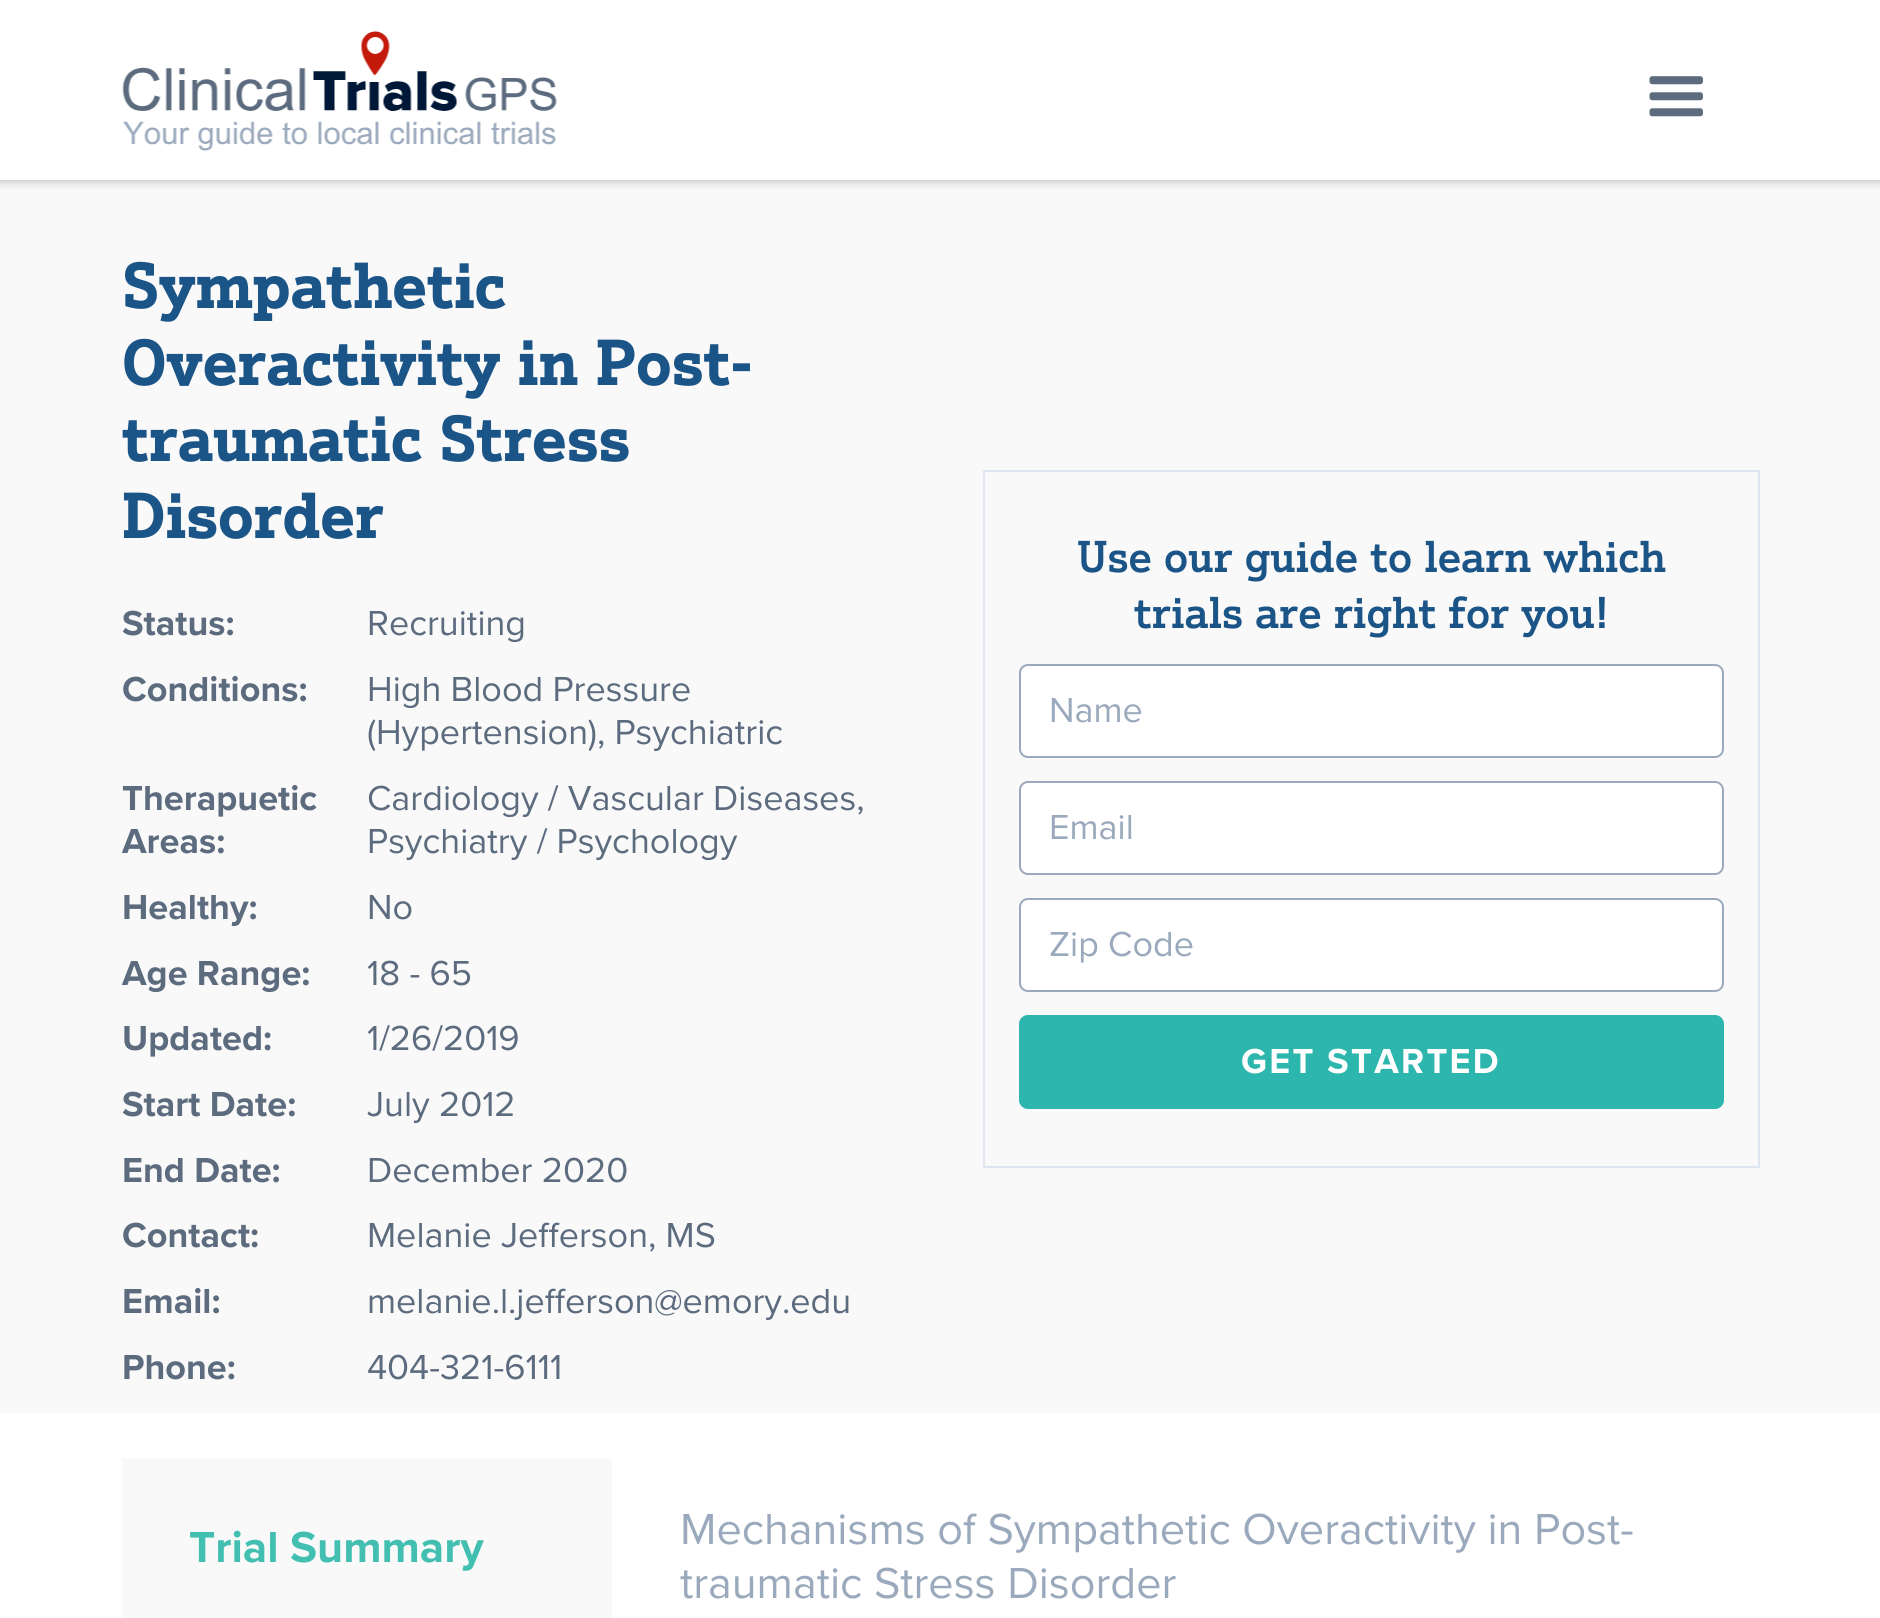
#include <cairo/cairo.h>
#include <math.h>
#include <stddef.h>

typedef struct { double x, y; const char *s; } line_t;
static cairo_t *cr;

static void rgb(unsigned color)
{
	cairo_set_source_rgb(cr, (color >> 16) / 255.0, (color >> 8 & 255) / 255.0, (color & 255) / 255.0);
}

static void tracked(double x, double y, const char *s, double letter, double word)
{
	cairo_move_to(cr, x, y);
	while (*s) {
		char ch[5] = {0};
		int n = 0;
		do ch[n++] = *s++; while ((*s & 0xC0) == 0x80);
		cairo_show_text(cr, ch);
		cairo_rel_move_to(cr, letter + word * (*ch == ' '), 0);
	}
}

static void rrect(double x, double y, double w, double h, double r)
{
	cairo_new_sub_path(cr);
	cairo_arc(cr, x + w - r, y + h - r, r, 0, M_PI / 2);
	cairo_arc(cr, x + r, y + h - r, r, M_PI / 2, M_PI);
	cairo_arc(cr, x + r, y + r, r, M_PI, 1.5 * M_PI);
	cairo_arc(cr, x + w - r, y + r, r, 1.5 * M_PI, 2 * M_PI);
	cairo_close_path(cr);
}

static void soft_shadow(double x, double y, double w, double h, double r, double blur, double alpha)
{
	cairo_push_group_with_content(cr, CAIRO_CONTENT_ALPHA);
	cairo_set_operator(cr, CAIRO_OPERATOR_SOURCE);
	for (int i = 15; i >= -15 && fmin(w, h) + blur * i / 3 > 0; i -= 2) {
		double e = blur * i / 6;
		cairo_set_source_rgba(cr, 0, 0, 0, alpha * erfc((i - 1) / 8.5) / 2);
		rrect(x - e, y - e, w + 2 * e, h + 2 * e, fmax(0, fmin(r + e + blur * .6, fmin(w, h) / 2 + e)));
		cairo_fill(cr);
	}
	cairo_pattern_t *soft = cairo_pop_group(cr);
	cairo_mask(cr, soft);
	cairo_pattern_destroy(soft);
}

static void image(const char *path, double x, double y, double w, double h)
{
	cairo_surface_t *image = cairo_image_surface_create_from_png(path);
	cairo_save(cr);
	cairo_set_source_surface(cr, image, x, y);
	cairo_rectangle(cr, x, y, w, h);
	cairo_fill(cr);
	cairo_restore(cr);
	cairo_surface_destroy(image);
}

int main(void) {
	cairo_surface_t *surface = cairo_image_surface_create(CAIRO_FORMAT_RGB24, 1880, 1618);
	cr = cairo_create(surface);
	cairo_font_options_t *options = cairo_font_options_create();
	cairo_font_options_set_hint_metrics(options, CAIRO_HINT_METRICS_OFF);
	cairo_font_options_set_hint_style(options, CAIRO_HINT_STYLE_NONE);
	cairo_set_font_options(cr, options);
	cairo_set_miter_limit(cr, 4);
	rgb(0xffffff);
	cairo_paint(cr);
	rgb(0xf9f9f9);
	cairo_rectangle(cr, 0, 180, 1880, 1233);
	cairo_fill(cr);
	cairo_save(cr);
	cairo_rectangle(cr, 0, 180, 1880, 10);
	cairo_clip(cr);
	rgb(0x8c8c8c);
	soft_shadow(0, 2, 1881, 180, 0, 4.5, 0.5);
	cairo_restore(cr);
	image("img/1.png", 122, 31, 435, 120);
	image("img/2.png", 1649, 76, 54, 41);
	cairo_rectangle(cr, 984, 471, 775, 696);
	rgb(0xdce5f0);
	cairo_stroke(cr);
	rgb(0xffffff);
	rrect(1020, 665, 703, 92, 8);
	cairo_fill_preserve(cr);
	rgb(0x9aa9bc);
	cairo_stroke(cr);
	rgb(0xffffff);
	rrect(1020, 782, 703, 92, 8);
	cairo_fill_preserve(cr);
	rgb(0x9aa9bc);
	cairo_stroke(cr);
	rgb(0xffffff);
	rrect(1020, 899, 703, 92, 8);
	cairo_fill_preserve(cr);
	rgb(0x9aa9bc);
	cairo_stroke(cr);
	rgb(0x2cb6ad);
	rrect(1019, 1015, 705, 94, 9);
	cairo_fill(cr);
	rgb(0xf9f9f9);
	cairo_rectangle(cr, 122, 1458, 490, 160);
	cairo_fill(cr);
	cairo_select_font_face(cr, "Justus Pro", CAIRO_FONT_SLANT_NORMAL, CAIRO_FONT_WEIGHT_BOLD);
	cairo_set_font_size(cr, 63);
	rgb(0x1b5487);
	{
		static const line_t items[] = {
			{122, 308, "Sympathetic"},
			{122, 385, "Overactivity in Post-"},
			{122, 461, "traumatic Stress"},
			{122, 538, "Disorder"},
		};
		for (size_t i = 0; i < sizeof items / sizeof *items; i++) {
			cairo_move_to(cr, items[i].x, items[i].y);
			cairo_show_text(cr, items[i].s);
		}
	}
	cairo_select_font_face(cr, "Proxima Nova", CAIRO_FONT_SLANT_NORMAL, CAIRO_FONT_WEIGHT_BOLD);
	cairo_set_font_size(cr, 36);
	rgb(0x5c6b7e);
	cairo_move_to(cr, 122, 635);
	cairo_show_text(cr, "Status:");
	cairo_select_font_face(cr, "Proxima Nova", CAIRO_FONT_SLANT_NORMAL, CAIRO_FONT_WEIGHT_NORMAL);
	cairo_move_to(cr, 367, 635);
	cairo_show_text(cr, "Recruiting");
	cairo_select_font_face(cr, "Proxima Nova", CAIRO_FONT_SLANT_NORMAL, CAIRO_FONT_WEIGHT_BOLD);
	cairo_move_to(cr, 122, 701);
	cairo_show_text(cr, "Conditions:");
	cairo_select_font_face(cr, "Proxima Nova", CAIRO_FONT_SLANT_NORMAL, CAIRO_FONT_WEIGHT_NORMAL);
	cairo_move_to(cr, 367, 701);
	cairo_show_text(cr, "High Blood Pressure");
	cairo_move_to(cr, 367, 744);
	cairo_show_text(cr, "(Hypertension), Psychiatric");
	cairo_select_font_face(cr, "Proxima Nova", CAIRO_FONT_SLANT_NORMAL, CAIRO_FONT_WEIGHT_BOLD);
	cairo_move_to(cr, 122, 810);
	cairo_show_text(cr, "Therapuetic");
	cairo_move_to(cr, 122, 853);
	cairo_show_text(cr, "Areas:");
	cairo_select_font_face(cr, "Proxima Nova", CAIRO_FONT_SLANT_NORMAL, CAIRO_FONT_WEIGHT_NORMAL);
	cairo_move_to(cr, 367, 810);
	cairo_show_text(cr, "Cardiology / Vascular Diseases,");
	cairo_move_to(cr, 367, 853);
	cairo_show_text(cr, "Psychiatry / Psychology");
	cairo_select_font_face(cr, "Proxima Nova", CAIRO_FONT_SLANT_NORMAL, CAIRO_FONT_WEIGHT_BOLD);
	cairo_move_to(cr, 122, 919);
	cairo_show_text(cr, "Healthy:");
	cairo_select_font_face(cr, "Proxima Nova", CAIRO_FONT_SLANT_NORMAL, CAIRO_FONT_WEIGHT_NORMAL);
	cairo_move_to(cr, 367, 919);
	cairo_show_text(cr, "No");
	cairo_select_font_face(cr, "Proxima Nova", CAIRO_FONT_SLANT_NORMAL, CAIRO_FONT_WEIGHT_BOLD);
	cairo_move_to(cr, 122, 985);
	cairo_show_text(cr, "Age Range:");
	cairo_select_font_face(cr, "Proxima Nova", CAIRO_FONT_SLANT_NORMAL, CAIRO_FONT_WEIGHT_NORMAL);
	cairo_move_to(cr, 367, 985);
	cairo_show_text(cr, "18 - 65");
	cairo_select_font_face(cr, "Proxima Nova", CAIRO_FONT_SLANT_NORMAL, CAIRO_FONT_WEIGHT_BOLD);
	cairo_move_to(cr, 122, 1050);
	cairo_show_text(cr, "Updated:");
	cairo_select_font_face(cr, "Proxima Nova", CAIRO_FONT_SLANT_NORMAL, CAIRO_FONT_WEIGHT_NORMAL);
	cairo_move_to(cr, 367, 1050);
	cairo_show_text(cr, "1/26/2019");
	cairo_select_font_face(cr, "Proxima Nova", CAIRO_FONT_SLANT_NORMAL, CAIRO_FONT_WEIGHT_BOLD);
	cairo_move_to(cr, 122, 1116);
	cairo_show_text(cr, "Start Date:");
	cairo_select_font_face(cr, "Proxima Nova", CAIRO_FONT_SLANT_NORMAL, CAIRO_FONT_WEIGHT_NORMAL);
	cairo_move_to(cr, 367, 1116);
	cairo_show_text(cr, "July 2012");
	cairo_select_font_face(cr, "Proxima Nova", CAIRO_FONT_SLANT_NORMAL, CAIRO_FONT_WEIGHT_BOLD);
	cairo_move_to(cr, 122, 1182);
	cairo_show_text(cr, "End Date:");
	cairo_select_font_face(cr, "Proxima Nova", CAIRO_FONT_SLANT_NORMAL, CAIRO_FONT_WEIGHT_NORMAL);
	cairo_move_to(cr, 367, 1182);
	cairo_show_text(cr, "December 2020");
	cairo_select_font_face(cr, "Proxima Nova", CAIRO_FONT_SLANT_NORMAL, CAIRO_FONT_WEIGHT_BOLD);
	cairo_move_to(cr, 122, 1247);
	cairo_show_text(cr, "Contact:");
	cairo_select_font_face(cr, "Proxima Nova", CAIRO_FONT_SLANT_NORMAL, CAIRO_FONT_WEIGHT_NORMAL);
	cairo_move_to(cr, 367, 1247);
	cairo_show_text(cr, "Melanie Jefferson, MS");
	cairo_select_font_face(cr, "Proxima Nova", CAIRO_FONT_SLANT_NORMAL, CAIRO_FONT_WEIGHT_BOLD);
	cairo_move_to(cr, 122, 1313);
	cairo_show_text(cr, "Email:");
	cairo_select_font_face(cr, "Proxima Nova", CAIRO_FONT_SLANT_NORMAL, CAIRO_FONT_WEIGHT_NORMAL);
	cairo_move_to(cr, 367, 1313);
	cairo_show_text(cr, "melanie.l.jefferson@emory.edu");
	cairo_select_font_face(cr, "Proxima Nova", CAIRO_FONT_SLANT_NORMAL, CAIRO_FONT_WEIGHT_BOLD);
	cairo_move_to(cr, 122, 1379);
	cairo_show_text(cr, "Phone:");
	cairo_select_font_face(cr, "Proxima Nova", CAIRO_FONT_SLANT_NORMAL, CAIRO_FONT_WEIGHT_NORMAL);
	cairo_move_to(cr, 367, 1379);
	cairo_show_text(cr, "404-321-6111");
	cairo_select_font_face(cr, "Justus Pro Medium", CAIRO_FONT_SLANT_NORMAL, CAIRO_FONT_WEIGHT_NORMAL);
	cairo_set_font_size(cr, 43.25);
	rgb(0x1b5487);
	cairo_move_to(cr, 1077, 572);
	cairo_show_text(cr, "Use our guide to learn which");
	cairo_move_to(cr, 1134, 628);
	cairo_show_text(cr, "trials are right for you!");
	cairo_select_font_face(cr, "Proxima Nova", CAIRO_FONT_SLANT_NORMAL, CAIRO_FONT_WEIGHT_NORMAL);
	cairo_set_font_size(cr, 36);
	rgb(0x9aa9bc);
	{
		static const line_t items[] = {
			{1049, 722, "Name"},
			{1049, 839, "Email"},
			{1049, 956, "Zip Code"},
		};
		for (size_t i = 0; i < sizeof items / sizeof *items; i++) {
			cairo_move_to(cr, items[i].x, items[i].y);
			cairo_show_text(cr, items[i].s);
		}
	}
	cairo_select_font_face(cr, "Proxima Nova", CAIRO_FONT_SLANT_NORMAL, CAIRO_FONT_WEIGHT_BOLD);
	rgb(0xffffff);
	tracked(1241, 1073, "GET STARTED", 2.25, 0);
	cairo_set_font_size(cr, 45);
	rgb(0x42bfb1);
	cairo_move_to(cr, 189, 1562);
	cairo_show_text(cr, "Trial Summary");
	cairo_select_font_face(cr, "Proxima Nova", CAIRO_FONT_SLANT_NORMAL, CAIRO_FONT_WEIGHT_NORMAL);
	rgb(0x9aa9bc);
	cairo_move_to(cr, 680, 1544);
	cairo_show_text(cr, "Mechanisms of Sympathetic Overactivity in Post-");
	cairo_move_to(cr, 680, 1598);
	cairo_show_text(cr, "traumatic Stress Disorder");
	cairo_surface_write_to_png(surface, "page.png");
	cairo_font_options_destroy(options);
	cairo_destroy(cr);
	cairo_surface_destroy(surface);
	return 0;
}
